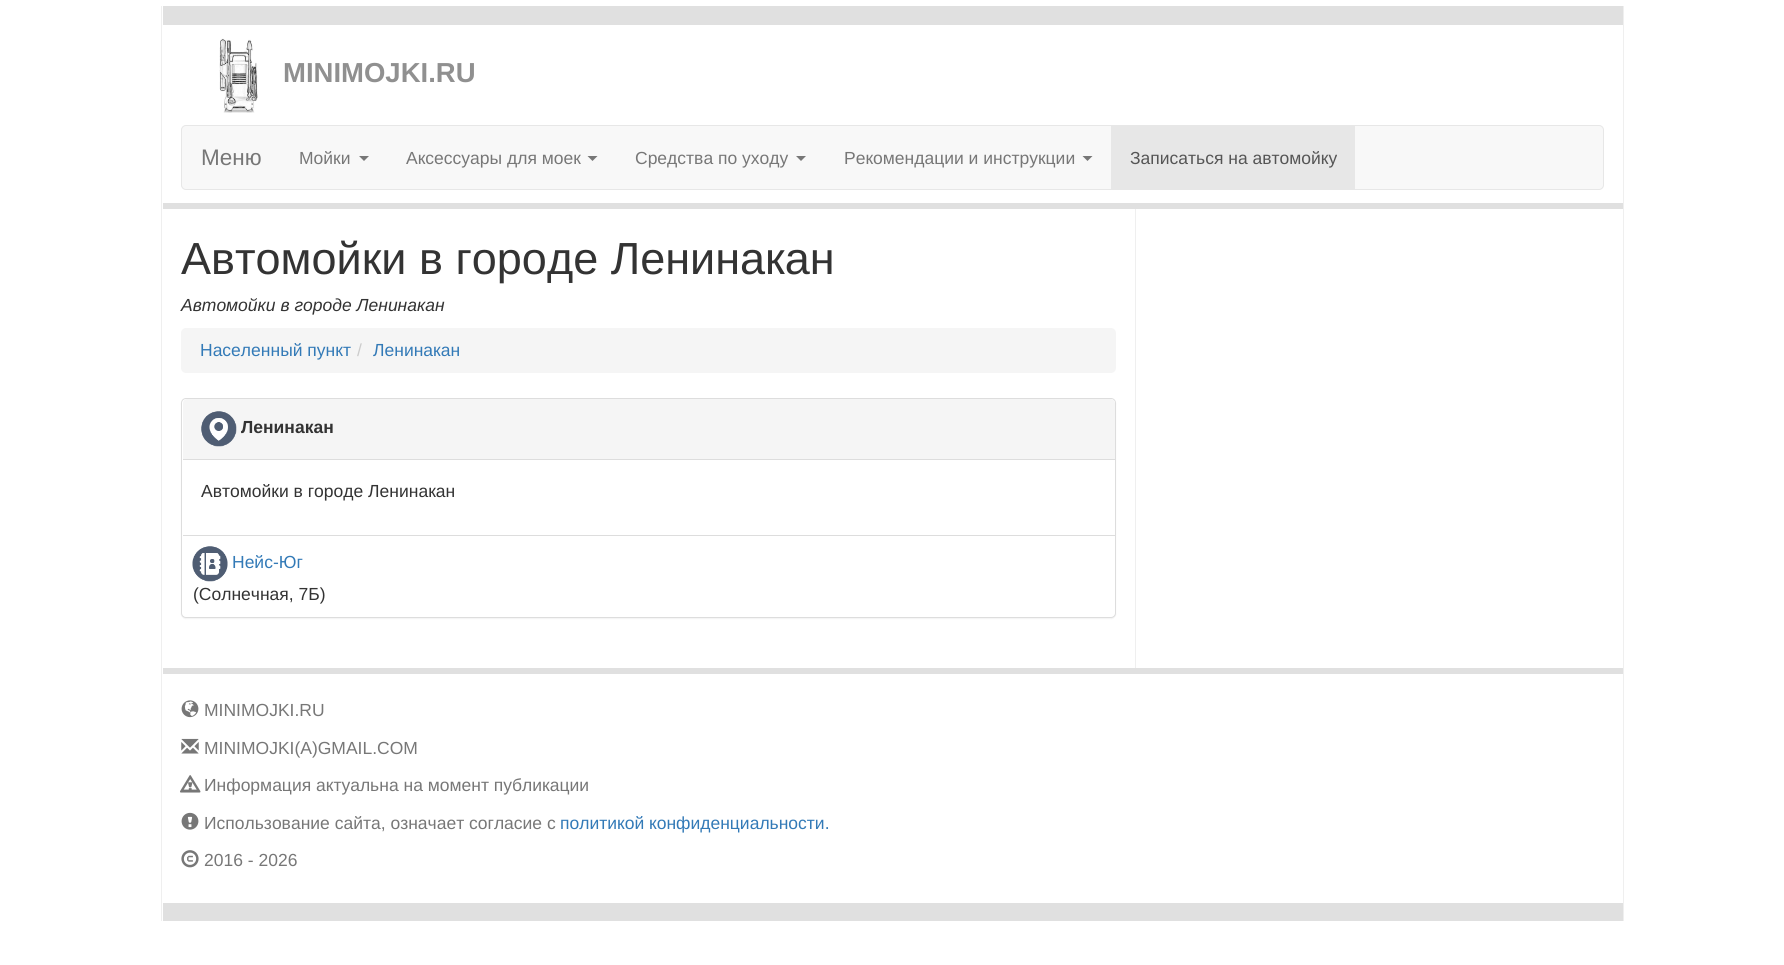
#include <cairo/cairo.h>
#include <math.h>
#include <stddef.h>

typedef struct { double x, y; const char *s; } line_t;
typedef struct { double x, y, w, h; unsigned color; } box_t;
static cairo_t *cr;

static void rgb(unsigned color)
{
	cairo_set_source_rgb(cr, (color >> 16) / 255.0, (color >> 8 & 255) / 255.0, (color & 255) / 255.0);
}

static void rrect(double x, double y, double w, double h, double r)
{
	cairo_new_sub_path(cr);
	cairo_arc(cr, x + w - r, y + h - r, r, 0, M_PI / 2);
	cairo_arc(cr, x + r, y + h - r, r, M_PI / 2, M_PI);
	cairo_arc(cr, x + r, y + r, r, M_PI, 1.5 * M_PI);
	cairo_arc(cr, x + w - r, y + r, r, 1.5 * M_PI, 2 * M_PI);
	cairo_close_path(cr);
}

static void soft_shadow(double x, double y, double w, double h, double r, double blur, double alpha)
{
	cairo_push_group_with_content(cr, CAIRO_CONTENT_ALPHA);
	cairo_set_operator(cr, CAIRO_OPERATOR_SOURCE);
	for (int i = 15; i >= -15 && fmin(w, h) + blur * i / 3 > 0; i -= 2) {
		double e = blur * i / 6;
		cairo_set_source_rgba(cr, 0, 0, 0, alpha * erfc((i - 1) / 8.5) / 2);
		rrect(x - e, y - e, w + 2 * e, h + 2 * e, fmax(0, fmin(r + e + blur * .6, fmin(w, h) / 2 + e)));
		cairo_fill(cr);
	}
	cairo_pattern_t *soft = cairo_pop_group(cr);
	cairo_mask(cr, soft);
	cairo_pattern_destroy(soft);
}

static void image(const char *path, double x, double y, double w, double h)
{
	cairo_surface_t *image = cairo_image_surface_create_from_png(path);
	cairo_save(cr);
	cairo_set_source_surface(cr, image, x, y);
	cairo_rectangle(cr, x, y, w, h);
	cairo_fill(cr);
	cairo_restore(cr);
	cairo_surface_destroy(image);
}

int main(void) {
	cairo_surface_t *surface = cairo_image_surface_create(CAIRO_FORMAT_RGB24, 1784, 965);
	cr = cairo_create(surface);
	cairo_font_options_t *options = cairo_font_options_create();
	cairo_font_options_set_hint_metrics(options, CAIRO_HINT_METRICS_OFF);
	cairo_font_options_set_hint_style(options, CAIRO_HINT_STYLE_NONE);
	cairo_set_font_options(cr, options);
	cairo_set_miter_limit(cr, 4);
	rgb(0xffffff);
	cairo_paint(cr);
	{
		static const box_t items[] = {
			{1623, 6, 1, 915, 0xefefef},
			{161, 6, 1, 915, 0xefefef},
			{163, 6, 1460, 19, 0xe0e0e0},
			{163, 203, 1460, 6, 0xe0e0e0},
		};
		for (size_t i = 0; i < sizeof items / sizeof *items; i++) {
			rgb(items[i].color);
			cairo_rectangle(cr, items[i].x, items[i].y, items[i].w, items[i].h);
			cairo_fill(cr);
		}
	}
	image("img/1.png", 219, 38, 39, 75);
	rgb(0xf8f8f8);
	rrect(181.5, 125.5, 1422, 64, 4.5);
	cairo_fill_preserve(cr);
	rgb(0xe7e7e7);
	cairo_set_line_width(cr, 1);
	cairo_stroke(cr);
	rgb(0x777777);
	cairo_new_path(cr);
	cairo_move_to(cr, 359, 156);
	cairo_line_to(cr, 369, 156);
	cairo_line_to(cr, 364, 161);
	cairo_close_path(cr);
	cairo_fill(cr);
	cairo_new_path(cr);
	cairo_move_to(cr, 587.5, 156);
	cairo_line_to(cr, 597.5, 156);
	cairo_line_to(cr, 592.5, 161);
	cairo_close_path(cr);
	cairo_fill(cr);
	cairo_new_path(cr);
	cairo_move_to(cr, 796, 156);
	cairo_line_to(cr, 806, 156);
	cairo_line_to(cr, 801, 161);
	cairo_close_path(cr);
	cairo_fill(cr);
	cairo_new_path(cr);
	cairo_move_to(cr, 1082.5, 156);
	cairo_line_to(cr, 1092.5, 156);
	cairo_line_to(cr, 1087.5, 161);
	cairo_close_path(cr);
	cairo_fill(cr);
	rgb(0xe7e7e7);
	cairo_rectangle(cr, 1111, 126, 244, 63);
	cairo_fill(cr);
	rgb(0xefefef);
	cairo_rectangle(cr, 1135, 209, 1, 459);
	cairo_fill(cr);
	rgb(0xf5f5f5);
	rrect(181, 328, 935, 45, 5);
	cairo_fill(cr);
	rgb(0x000000);
	soft_shadow(181, 399, 935, 220, 5, 0.5, 0.05);
	rgb(0xffffff);
	rrect(181.5, 398.5, 934, 219, 4.5);
	cairo_fill_preserve(cr);
	rgb(0xdddddd);
	cairo_stroke(cr);
	rgb(0xf5f5f5);
	cairo_new_path(cr);
	cairo_move_to(cr, 187, 399);
	cairo_line_to(cr, 1111, 399);
	cairo_curve_to(cr, 1113, 399, 1115, 401, 1115, 403);
	cairo_line_to(cr, 1115, 460);
	cairo_line_to(cr, 183, 460);
	cairo_line_to(cr, 183, 403);
	cairo_curve_to(cr, 183, 401, 185, 399, 187, 399);
	cairo_close_path(cr);
	cairo_fill(cr);
	rgb(0xdddddd);
	cairo_rectangle(cr, 183, 459, 932, 1);
	cairo_fill(cr);
	image("img/2.png", 201, 411, 36, 36);
	cairo_rectangle(cr, 183, 535, 932, 1);
	cairo_fill(cr);
	image("img/3.png", 192, 546, 36, 36);
	rgb(0xe0e0e0);
	cairo_rectangle(cr, 163, 668, 1460, 6);
	cairo_fill(cr);
	cairo_rectangle(cr, 163, 903, 1460, 18);
	cairo_fill(cr);
	image("img/4.png", 181, 700, 18, 18);
	image("img/5.png", 181, 738, 18, 16);
	image("img/6.png", 180, 775, 21, 18);
	image("img/7.png", 181, 812, 18, 18);
	image("img/8.png", 181, 850, 18, 18);
	cairo_select_font_face(cr, "Liberation Sans", CAIRO_FONT_SLANT_NORMAL, CAIRO_FONT_WEIGHT_BOLD);
	cairo_set_font_size(cr, 27.5);
	rgb(0x909090);
	cairo_move_to(cr, 283, 82);
	cairo_show_text(cr, "MINIMOJKI.RU");
	cairo_select_font_face(cr, "Liberation Sans", CAIRO_FONT_SLANT_NORMAL, CAIRO_FONT_WEIGHT_NORMAL);
	cairo_set_font_size(cr, 22.5);
	rgb(0x777777);
	cairo_move_to(cr, 201, 165);
	cairo_show_text(cr, "Меню");
	cairo_set_font_size(cr, 17.5);
	{
		static const line_t items[] = {
			{299, 164, "Мойки"},
			{406, 164, "Аксессуары для моек"},
			{635, 164, "Средства по уходу"},
			{844, 164, "Рекомендации и инструкции"},
		};
		for (size_t i = 0; i < sizeof items / sizeof *items; i++) {
			cairo_move_to(cr, items[i].x, items[i].y);
			cairo_show_text(cr, items[i].s);
		}
	}
	rgb(0x555555);
	cairo_move_to(cr, 1130, 164);
	cairo_show_text(cr, "Записаться на автомойку");
	cairo_set_font_size(cr, 45);
	rgb(0x333333);
	cairo_move_to(cr, 181, 274);
	cairo_show_text(cr, "Автомойки в городе Ленинакан");
	cairo_select_font_face(cr, "Liberation Sans", CAIRO_FONT_SLANT_ITALIC, CAIRO_FONT_WEIGHT_NORMAL);
	cairo_set_font_size(cr, 17.5);
	cairo_move_to(cr, 181, 311);
	cairo_show_text(cr, "Автомойки в городе Ленинакан");
	cairo_select_font_face(cr, "Liberation Sans", CAIRO_FONT_SLANT_NORMAL, CAIRO_FONT_WEIGHT_NORMAL);
	rgb(0x337ab7);
	cairo_move_to(cr, 200, 356);
	cairo_show_text(cr, "Населенный пункт");
	rgb(0xcccccc);
	cairo_move_to(cr, 357, 356);
	cairo_show_text(cr, "/");
	rgb(0x337ab7);
	cairo_move_to(cr, 373, 356);
	cairo_show_text(cr, "Ленинакан");
	cairo_select_font_face(cr, "Liberation Sans", CAIRO_FONT_SLANT_NORMAL, CAIRO_FONT_WEIGHT_BOLD);
	rgb(0x333333);
	cairo_move_to(cr, 241, 433);
	cairo_show_text(cr, "Ленинакан");
	cairo_select_font_face(cr, "Liberation Sans", CAIRO_FONT_SLANT_NORMAL, CAIRO_FONT_WEIGHT_NORMAL);
	cairo_move_to(cr, 201, 497);
	cairo_show_text(cr, "Автомойки в городе Ленинакан");
	rgb(0x337ab7);
	cairo_move_to(cr, 232, 568);
	cairo_show_text(cr, "Нейс-Юг");
	rgb(0x333333);
	cairo_move_to(cr, 193, 600);
	cairo_show_text(cr, "(Солнечная, 7Б)");
	rgb(0x777777);
	{
		static const line_t items[] = {
			{204, 716, "MINIMOJKI.RU"},
			{204, 754, "MINIMOJKI(А)GMAIL.COM"},
			{204, 791, "Информация актуальна на момент публикации"},
			{204, 829, "Использование сайта, означает согласие с"},
		};
		for (size_t i = 0; i < sizeof items / sizeof *items; i++) {
			cairo_move_to(cr, items[i].x, items[i].y);
			cairo_show_text(cr, items[i].s);
		}
	}
	rgb(0x337ab7);
	cairo_move_to(cr, 560, 829);
	cairo_show_text(cr, "политикой конфиденциальности.");
	rgb(0x777777);
	cairo_move_to(cr, 204, 866);
	cairo_show_text(cr, "2016 - 2026");
	cairo_surface_write_to_png(surface, "page.png");
	cairo_font_options_destroy(options);
	cairo_destroy(cr);
	cairo_surface_destroy(surface);
	return 0;
}
